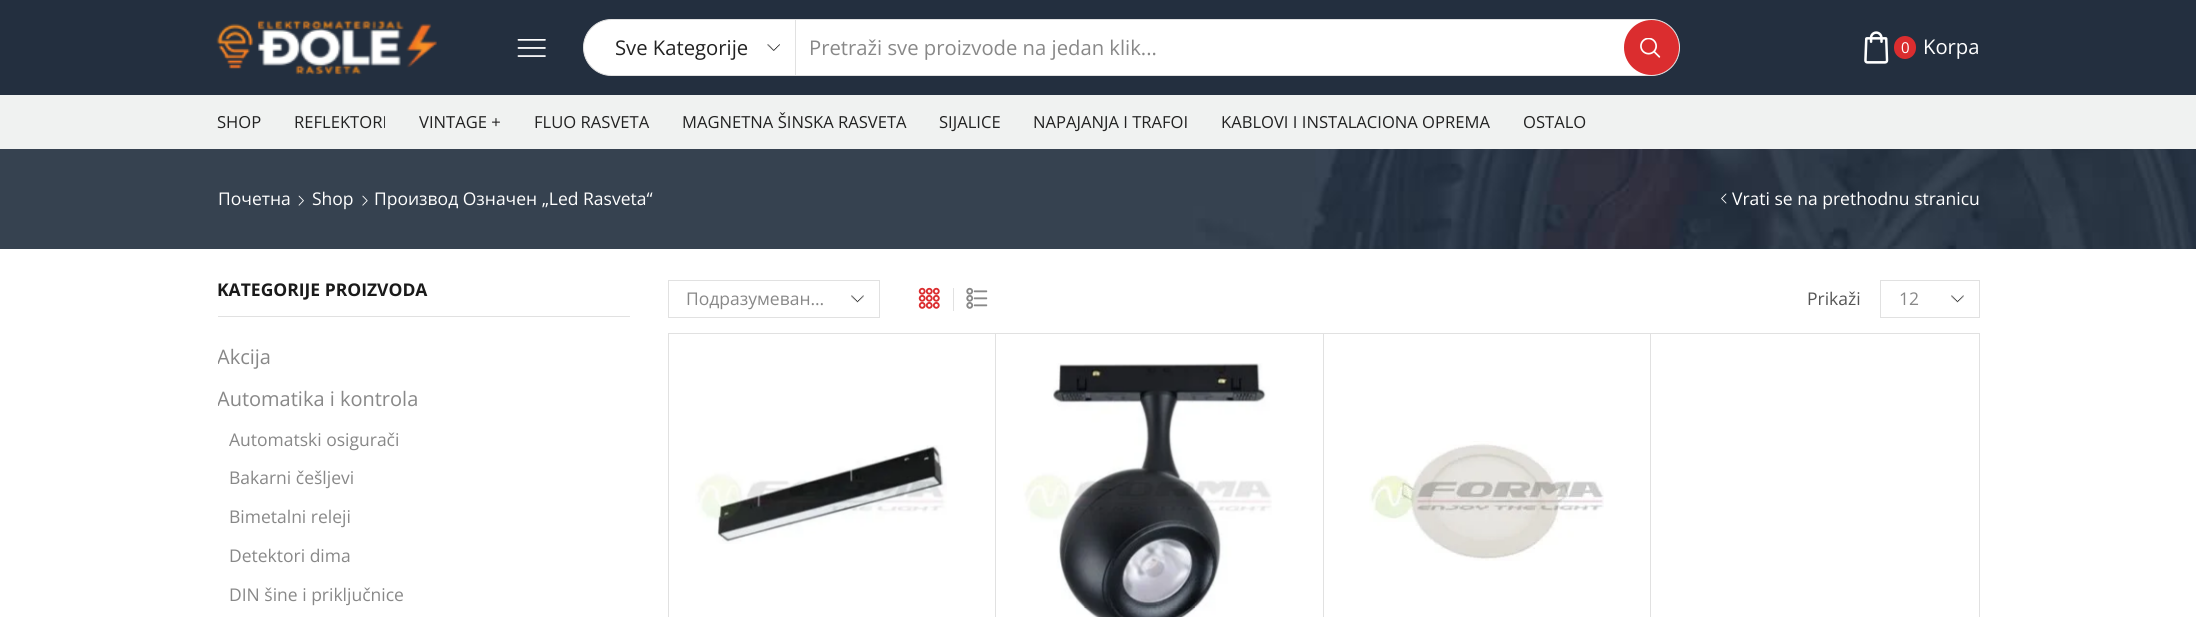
#include <cairo/cairo.h>
#include <math.h>
#include <stddef.h>

typedef struct { double x, y; const char *s; } line_t;
typedef struct { double x, y, w, h; unsigned color; } box_t;
static cairo_t *cr;

static void rgb(unsigned color)
{
	cairo_set_source_rgb(cr, (color >> 16) / 255.0, (color >> 8 & 255) / 255.0, (color & 255) / 255.0);
}

static void rrect(double x, double y, double w, double h, double r)
{
	cairo_new_sub_path(cr);
	cairo_arc(cr, x + w - r, y + h - r, r, 0, M_PI / 2);
	cairo_arc(cr, x + r, y + h - r, r, M_PI / 2, M_PI);
	cairo_arc(cr, x + r, y + r, r, M_PI, 1.5 * M_PI);
	cairo_arc(cr, x + w - r, y + r, r, 1.5 * M_PI, 2 * M_PI);
	cairo_close_path(cr);
}

static void image(const char *path, double x, double y, double w, double h)
{
	cairo_surface_t *image = cairo_image_surface_create_from_png(path);
	cairo_save(cr);
	cairo_set_source_surface(cr, image, x, y);
	cairo_rectangle(cr, x, y, w, h);
	cairo_fill(cr);
	cairo_restore(cr);
	cairo_surface_destroy(image);
}

int main(void) {
	cairo_surface_t *surface = cairo_image_surface_create(CAIRO_FORMAT_RGB24, 2196, 617);
	cr = cairo_create(surface);
	cairo_font_options_t *options = cairo_font_options_create();
	cairo_font_options_set_hint_metrics(options, CAIRO_HINT_METRICS_OFF);
	cairo_font_options_set_hint_style(options, CAIRO_HINT_STYLE_NONE);
	cairo_set_font_options(cr, options);
	cairo_set_miter_limit(cr, 4);
	rgb(0xffffff);
	cairo_paint(cr);
	rgb(0x232f3f);
	cairo_rectangle(cr, 0, 0, 2196, 95);
	cairo_fill(cr);
	image("img/1.png", 216, 20, 221, 55);
	image("img/2.png", 517, 39, 29, 18);
	rgb(0xffffff);
	rrect(583.5, 19.5, 1096, 56, 28);
	cairo_fill_preserve(cr);
	rgb(0xe1e1e1);
	cairo_set_line_width(cr, 1);
	cairo_stroke(cr);
	image("img/3.png", 767, 44, 13, 7);
	cairo_rectangle(cr, 795, 20, 1, 55);
	cairo_fill(cr);
	rgb(0xdb2d2f);
	cairo_arc(cr, 1651.5, 47.5, 27.5, 0, 2 * M_PI);
	cairo_fill(cr);
	image("img/4.png", 1640, 38, 21, 20);
	image("img/5.png", 1864, 31, 25, 33);
	rrect(1894, 36, 22, 23, 11);
	cairo_fill(cr);
	rgb(0xf0f2f1);
	cairo_rectangle(cr, 0, 95, 2196, 54);
	cairo_fill(cr);
	image("img/6.png", 0, 149, 2196, 100);
	image("img/7.png", 298, 195, 6, 11);
	image("img/8.png", 362, 195, 6, 11);
	image("img/9.png", 1721, 193, 6, 11);
	rgb(0xe1e1e1);
	cairo_rectangle(cr, 218, 316, 412, 1);
	cairo_fill(cr);
	image("img/10.png", 851, 295, 13, 8);
	cairo_rectangle(cr, 668.5, 280.5, 211, 37);
	cairo_stroke(cr);
	image("img/11.png", 918, 287, 22, 22);
	cairo_rectangle(cr, 953, 288, 1, 23);
	cairo_fill(cr);
	image("img/12.png", 966, 287, 22, 22);
	image("img/13.png", 1951, 295, 13, 8);
	cairo_rectangle(cr, 1880.5, 280.5, 99, 37);
	cairo_stroke(cr);
	{
		static const box_t items[] = {
			{668, 333, 1312, 1, 0xe1e1e1},
			{668, 333, 1, 284, 0xe1e1e1},
			{995, 334, 1, 283, 0xe1e1e1},
		};
		for (size_t i = 0; i < sizeof items / sizeof *items; i++) {
			rgb(items[i].color);
			cairo_rectangle(cr, items[i].x, items[i].y, items[i].w, items[i].h);
			cairo_fill(cr);
		}
	}
	image("img/14.png", 695, 445, 252, 99);
	cairo_rectangle(cr, 1323, 334, 1, 283);
	cairo_fill(cr);
	image("img/15.png", 1023, 363, 249, 254);
	cairo_rectangle(cr, 1650, 334, 1, 283);
	cairo_fill(cr);
	image("img/16.png", 1369, 441, 235, 120);
	cairo_rectangle(cr, 1979, 334, 1, 283);
	cairo_fill(cr);
	cairo_select_font_face(cr, "Open Sans", CAIRO_FONT_SLANT_NORMAL, CAIRO_FONT_WEIGHT_NORMAL);
	cairo_set_font_size(cr, 20.25);
	rgb(0x222222);
	cairo_move_to(cr, 615, 55);
	cairo_show_text(cr, "Sve Kategorije");
	rgb(0x888888);
	cairo_move_to(cr, 809, 55);
	cairo_show_text(cr, "Pretraži sve proizvode na jedan klik...");
	cairo_set_font_size(cr, 15);
	rgb(0xffffff);
	cairo_move_to(cr, 1901, 53);
	cairo_show_text(cr, "0");
	cairo_set_font_size(cr, 20.25);
	cairo_move_to(cr, 1923, 54);
	cairo_show_text(cr, "Korpa");
	cairo_set_font_size(cr, 16.6);
	rgb(0x222222);
	{
		static const line_t items[] = {
			{217, 128, "SHOP"},
			{294, 128, "REFLEKTORI"},
			{419, 128, "VINTAGE +"},
			{534, 128, "FLUO RASVETA"},
			{682, 128, "MAGNETNA ŠINSKA RASVETA"},
			{939, 128, "SIJALICE"},
			{1033, 128, "NAPAJANJA I TRAFOI"},
			{1221, 128, "KABLOVI I INSTALACIONA OPREMA"},
			{1523, 128, "OSTALO"},
		};
		for (size_t i = 0; i < sizeof items / sizeof *items; i++) {
			cairo_move_to(cr, items[i].x, items[i].y);
			cairo_show_text(cr, items[i].s);
		}
	}
	cairo_set_font_size(cr, 17.5);
	rgb(0xffffff);
	{
		static const line_t items[] = {
			{218, 205, "Почетна"},
			{312, 205, "Shop"},
			{374, 205, "Производ Oзначен „Led Rasveta“"},
			{1732, 205, "Vrati se na prethodnu stranicu"},
		};
		for (size_t i = 0; i < sizeof items / sizeof *items; i++) {
			cairo_move_to(cr, items[i].x, items[i].y);
			cairo_show_text(cr, items[i].s);
		}
	}
	cairo_select_font_face(cr, "Open Sans", CAIRO_FONT_SLANT_NORMAL, CAIRO_FONT_WEIGHT_BOLD);
	rgb(0x1a1a1a);
	cairo_move_to(cr, 217, 296);
	cairo_show_text(cr, "KATEGORIJE PROIZVODA");
	cairo_save(cr);
	cairo_rectangle(cr, 218, 343, 412, 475);
	cairo_clip(cr);
	cairo_select_font_face(cr, "Open Sans", CAIRO_FONT_SLANT_NORMAL, CAIRO_FONT_WEIGHT_NORMAL);
	cairo_set_font_size(cr, 20);
	rgb(0x888888);
	cairo_move_to(cr, 217, 364);
	cairo_show_text(cr, "Akcija");
	cairo_move_to(cr, 217, 406);
	cairo_show_text(cr, "Automatika i kontrola");
	cairo_restore(cr);
	cairo_select_font_face(cr, "Open Sans", CAIRO_FONT_SLANT_NORMAL, CAIRO_FONT_WEIGHT_NORMAL);
	rgb(0x888888);
	{
		static const line_t items[] = {
			{229, 446, "Automatski osigurači"},
			{229, 484, "Bakarni češljevi"},
			{229, 523, "Bimetalni releji"},
			{229, 562, "Detektori dima"},
			{229, 601, "DIN šine i priključnice"},
			{686, 305, "Подразумеван…"},
		};
		for (size_t i = 0; i < sizeof items / sizeof *items; i++) {
			cairo_move_to(cr, items[i].x, items[i].y);
			cairo_show_text(cr, items[i].s);
		}
	}
	rgb(0x555555);
	cairo_move_to(cr, 1807, 305);
	cairo_show_text(cr, "Prikaži");
	rgb(0x888888);
	cairo_move_to(cr, 1899, 305);
	cairo_show_text(cr, "12");
	cairo_surface_write_to_png(surface, "page.png");
	cairo_font_options_destroy(options);
	cairo_destroy(cr);
	cairo_surface_destroy(surface);
	return 0;
}
